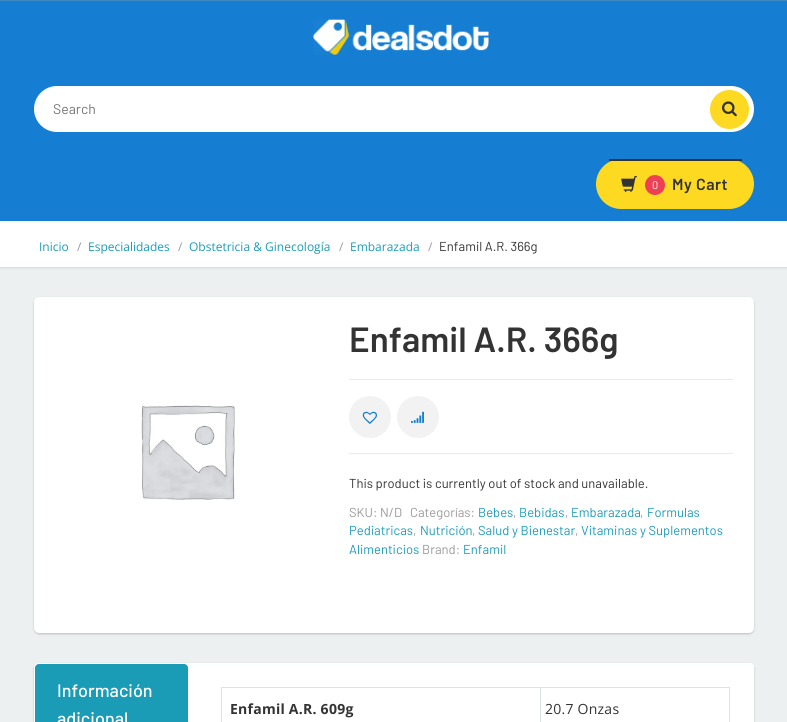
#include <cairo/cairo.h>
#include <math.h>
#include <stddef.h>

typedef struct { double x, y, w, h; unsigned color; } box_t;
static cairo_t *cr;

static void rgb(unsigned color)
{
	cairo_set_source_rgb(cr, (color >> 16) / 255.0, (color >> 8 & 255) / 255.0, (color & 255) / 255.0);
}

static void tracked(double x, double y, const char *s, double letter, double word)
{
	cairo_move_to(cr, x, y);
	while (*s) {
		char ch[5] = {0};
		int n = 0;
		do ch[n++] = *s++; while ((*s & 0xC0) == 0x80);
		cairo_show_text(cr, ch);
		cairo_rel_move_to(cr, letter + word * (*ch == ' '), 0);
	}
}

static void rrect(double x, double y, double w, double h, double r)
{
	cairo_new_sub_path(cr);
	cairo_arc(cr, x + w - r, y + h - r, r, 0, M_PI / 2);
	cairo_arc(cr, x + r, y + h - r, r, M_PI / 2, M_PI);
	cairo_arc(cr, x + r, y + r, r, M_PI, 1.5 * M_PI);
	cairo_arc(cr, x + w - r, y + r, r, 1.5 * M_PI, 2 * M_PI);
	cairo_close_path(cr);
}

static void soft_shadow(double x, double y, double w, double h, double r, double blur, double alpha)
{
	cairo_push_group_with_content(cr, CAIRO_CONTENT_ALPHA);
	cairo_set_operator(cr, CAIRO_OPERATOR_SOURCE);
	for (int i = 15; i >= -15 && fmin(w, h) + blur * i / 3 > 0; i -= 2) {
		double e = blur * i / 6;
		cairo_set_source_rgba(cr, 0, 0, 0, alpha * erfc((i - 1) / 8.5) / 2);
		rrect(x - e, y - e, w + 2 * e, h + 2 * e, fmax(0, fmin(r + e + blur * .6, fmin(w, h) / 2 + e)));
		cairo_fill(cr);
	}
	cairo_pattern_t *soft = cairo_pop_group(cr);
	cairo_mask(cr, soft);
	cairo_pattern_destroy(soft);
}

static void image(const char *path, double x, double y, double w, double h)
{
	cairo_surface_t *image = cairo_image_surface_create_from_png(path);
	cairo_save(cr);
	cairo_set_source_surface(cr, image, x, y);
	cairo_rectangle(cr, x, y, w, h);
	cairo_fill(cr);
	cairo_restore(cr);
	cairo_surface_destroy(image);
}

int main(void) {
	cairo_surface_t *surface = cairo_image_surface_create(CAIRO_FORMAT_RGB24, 787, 722);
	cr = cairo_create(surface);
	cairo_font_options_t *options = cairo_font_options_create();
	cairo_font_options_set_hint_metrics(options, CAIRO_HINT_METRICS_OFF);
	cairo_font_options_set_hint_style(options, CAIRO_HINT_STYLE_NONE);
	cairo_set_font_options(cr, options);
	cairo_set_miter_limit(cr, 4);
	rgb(0xecf0f1);
	cairo_paint(cr);
	rgb(0x3f89c1);
	cairo_rectangle(cr, 0, 0, 787, 1);
	cairo_fill(cr);
	rgb(0x000000);
	soft_shadow(0, 222, 787, 46, 0, 1, 0.1);
	rgb(0x157ed2);
	cairo_rectangle(cr, 0, 1, 787, 220);
	cairo_fill(cr);
	image("img/1.png", 313, 19, 176, 36);
	rgb(0xffffff);
	rrect(34, 86, 720, 46, 23);
	cairo_fill(cr);
	rgb(0xfdd922);
	cairo_arc(cr, 729.5, 109.5, 19.5, 0, 2 * M_PI);
	cairo_fill(cr);
	image("img/2.png", 722, 101, 15, 16);
	rrect(596, 159, 158, 50, 25);
	cairo_fill(cr);
	rgb(0x333333);
	cairo_rectangle(cr, 609, 159, 133, 2);
	cairo_fill(cr);
	image("img/3.png", 621, 176, 16, 16);
	rgb(0xee4054);
	cairo_arc(cr, 655, 185, 10, 0, 2 * M_PI);
	cairo_fill(cr);
	rgb(0xffffff);
	cairo_rectangle(cr, 0, 221, 787, 46);
	cairo_fill(cr);
	rgb(0x000000);
	soft_shadow(34, 298, 720, 336, 5, 1, 0.2);
	rgb(0xffffff);
	rrect(34, 297, 720, 336, 5);
	cairo_fill(cr);
	image("img/4.png", 141, 405, 94, 95);
	rgb(0xeaeaea);
	cairo_rectangle(cr, 349, 379, 384, 1);
	cairo_fill(cr);
	cairo_rectangle(cr, 349, 453, 384, 1);
	cairo_fill(cr);
	rgb(0xf2f2f2);
	cairo_arc(cr, 370, 417, 21, 0, 2 * M_PI);
	cairo_fill(cr);
	image("img/5.png", 362, 411, 15, 13);
	cairo_arc(cr, 418, 417, 21, 0, 2 * M_PI);
	cairo_fill(cr);
	image("img/6.png", 411, 411, 13, 12);
	rgb(0x000000);
	soft_shadow(34, 664, 720, 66, 5, 1, 0.2);
	rgb(0xffffff);
	rrect(34, 663, 720, 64, 5);
	cairo_fill(cr);
	rgb(0x1a9cb7);
	rrect(34.5, 663.5, 154, 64, 4.5);
	cairo_fill_preserve(cr);
	rgb(0xffffff);
	cairo_set_line_width(cr, 1);
	cairo_stroke(cr);
	cairo_new_path(cr);
	cairo_move_to(cr, 221, 663);
	cairo_line_to(cr, 749, 663);
	cairo_curve_to(cr, 752, 663, 754, 665, 754, 668);
	cairo_line_to(cr, 754, 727);
	cairo_line_to(cr, 221, 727);
	cairo_close_path(cr);
	cairo_fill(cr);
	cairo_new_path(cr);
	cairo_move_to(cr, 225, 663);
	cairo_line_to(cr, 749, 663);
	cairo_curve_to(cr, 752, 663, 754, 665, 754, 668);
	cairo_line_to(cr, 754, 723);
	cairo_curve_to(cr, 754, 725, 752, 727, 750, 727);
	cairo_line_to(cr, 225, 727);
	cairo_curve_to(cr, 223, 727, 221, 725, 221, 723);
	cairo_line_to(cr, 221, 667);
	cairo_curve_to(cr, 221, 665, 223, 663, 225, 663);
	cairo_close_path(cr);
	cairo_fill(cr);
	{
		static const box_t items[] = {
			{540, 687, 190, 1, 0xdee2e6},
			{540, 687, 1, 35, 0xdee2e6},
			{221, 687, 320, 1, 0xdee2e6},
			{221, 687, 1, 35, 0xdee2e6},
			{729, 687, 1, 35, 0xdee2e6},
		};
		for (size_t i = 0; i < sizeof items / sizeof *items; i++) {
			rgb(items[i].color);
			cairo_rectangle(cr, items[i].x, items[i].y, items[i].w, items[i].h);
			cairo_fill(cr);
		}
	}
	cairo_select_font_face(cr, "Barlow", CAIRO_FONT_SLANT_NORMAL, CAIRO_FONT_WEIGHT_NORMAL);
	cairo_set_font_size(cr, 14);
	rgb(0x757575);
	cairo_move_to(cr, 53, 114);
	cairo_show_text(cr, "Search");
	cairo_set_font_size(cr, 11);
	rgb(0xffffff);
	cairo_move_to(cr, 652, 189);
	cairo_show_text(cr, "0");
	cairo_select_font_face(cr, "Barlow SemiBold", CAIRO_FONT_SLANT_NORMAL, CAIRO_FONT_WEIGHT_NORMAL);
	cairo_set_font_size(cr, 16);
	rgb(0x333333);
	tracked(672, 190, "My Cart", 0.5, 0);
	cairo_select_font_face(cr, "Open Sans", CAIRO_FONT_SLANT_NORMAL, CAIRO_FONT_WEIGHT_NORMAL);
	cairo_set_font_size(cr, 12);
	rgb(0x1a9cb7);
	cairo_move_to(cr, 39, 251);
	cairo_show_text(cr, "Inicio");
	rgb(0x999999);
	cairo_move_to(cr, 77, 251);
	cairo_show_text(cr, "/");
	rgb(0x1a9cb7);
	cairo_move_to(cr, 88, 251);
	cairo_show_text(cr, "Especialidades");
	rgb(0x999999);
	cairo_move_to(cr, 178, 251);
	cairo_show_text(cr, "/");
	rgb(0x1a9cb7);
	cairo_move_to(cr, 189, 251);
	cairo_show_text(cr, "Obstetricia & Ginecología");
	rgb(0x999999);
	cairo_move_to(cr, 339, 251);
	cairo_show_text(cr, "/");
	rgb(0x1a9cb7);
	cairo_move_to(cr, 350, 251);
	cairo_show_text(cr, "Embarazada");
	rgb(0x999999);
	cairo_move_to(cr, 428, 251);
	cairo_show_text(cr, "/");
	cairo_select_font_face(cr, "Barlow", CAIRO_FONT_SLANT_NORMAL, CAIRO_FONT_WEIGHT_NORMAL);
	cairo_set_font_size(cr, 13);
	rgb(0x333333);
	cairo_move_to(cr, 439, 251);
	cairo_show_text(cr, "Enfamil A.R. 366g");
	cairo_select_font_face(cr, "Barlow SemiBold", CAIRO_FONT_SLANT_NORMAL, CAIRO_FONT_WEIGHT_NORMAL);
	cairo_set_font_size(cr, 35);
	cairo_move_to(cr, 349, 352);
	cairo_show_text(cr, "Enfamil A.R. 366g");
	cairo_select_font_face(cr, "Barlow", CAIRO_FONT_SLANT_NORMAL, CAIRO_FONT_WEIGHT_NORMAL);
	cairo_set_font_size(cr, 13);
	cairo_move_to(cr, 349, 488);
	cairo_show_text(cr, "This product is currently out of stock and unavailable.");
	rgb(0x999999);
	cairo_move_to(cr, 349, 517);
	cairo_show_text(cr, "SKU: N/D");
	cairo_move_to(cr, 410, 517);
	cairo_show_text(cr, "Categorías:");
	rgb(0x1a9cb7);
	cairo_move_to(cr, 478, 517);
	cairo_show_text(cr, "Bebes");
	rgb(0x999999);
	cairo_move_to(cr, 513, 517);
	cairo_show_text(cr, ",");
	rgb(0x1a9cb7);
	cairo_move_to(cr, 519, 517);
	cairo_show_text(cr, "Bebidas");
	rgb(0x999999);
	cairo_move_to(cr, 565, 517);
	cairo_show_text(cr, ",");
	rgb(0x1a9cb7);
	cairo_move_to(cr, 571, 517);
	cairo_show_text(cr, "Embarazada");
	rgb(0x999999);
	cairo_move_to(cr, 640, 517);
	cairo_show_text(cr, ",");
	rgb(0x1a9cb7);
	cairo_move_to(cr, 647, 517);
	cairo_show_text(cr, "Formulas");
	cairo_move_to(cr, 349, 535);
	cairo_show_text(cr, "Pediatricas");
	rgb(0x999999);
	cairo_move_to(cr, 413, 535);
	cairo_show_text(cr, ",");
	rgb(0x1a9cb7);
	cairo_move_to(cr, 420, 535);
	cairo_show_text(cr, "Nutrición");
	rgb(0x999999);
	cairo_move_to(cr, 472, 535);
	cairo_show_text(cr, ",");
	rgb(0x1a9cb7);
	cairo_move_to(cr, 478, 535);
	cairo_show_text(cr, "Salud y Bienestar");
	rgb(0x999999);
	cairo_move_to(cr, 575, 535);
	cairo_show_text(cr, ",");
	rgb(0x1a9cb7);
	cairo_move_to(cr, 581, 535);
	cairo_show_text(cr, "Vitaminas y Suplementos");
	cairo_move_to(cr, 349, 554);
	cairo_show_text(cr, "Alimenticios");
	rgb(0x999999);
	cairo_move_to(cr, 422, 554);
	cairo_show_text(cr, "Brand:");
	rgb(0x1a9cb7);
	cairo_move_to(cr, 463, 554);
	cairo_show_text(cr, "Enfamil");
	cairo_select_font_face(cr, "Barlow Medium", CAIRO_FONT_SLANT_NORMAL, CAIRO_FONT_WEIGHT_NORMAL);
	cairo_set_font_size(cr, 18);
	rgb(0xffffff);
	cairo_move_to(cr, 57, 697);
	cairo_show_text(cr, "Información");
	cairo_move_to(cr, 57, 725);
	cairo_show_text(cr, "adicional");
	cairo_select_font_face(cr, "Open Sans", CAIRO_FONT_SLANT_NORMAL, CAIRO_FONT_WEIGHT_BOLD);
	cairo_set_font_size(cr, 14);
	rgb(0x333333);
	tracked(230, 714, "Enfamil A.R. 609g", 0.25, 0);
	cairo_select_font_face(cr, "Open Sans", CAIRO_FONT_SLANT_NORMAL, CAIRO_FONT_WEIGHT_NORMAL);
	tracked(545, 714, "20.7 Onzas", 0.25, 0);
	cairo_surface_write_to_png(surface, "page.png");
	cairo_font_options_destroy(options);
	cairo_destroy(cr);
	cairo_surface_destroy(surface);
	return 0;
}
